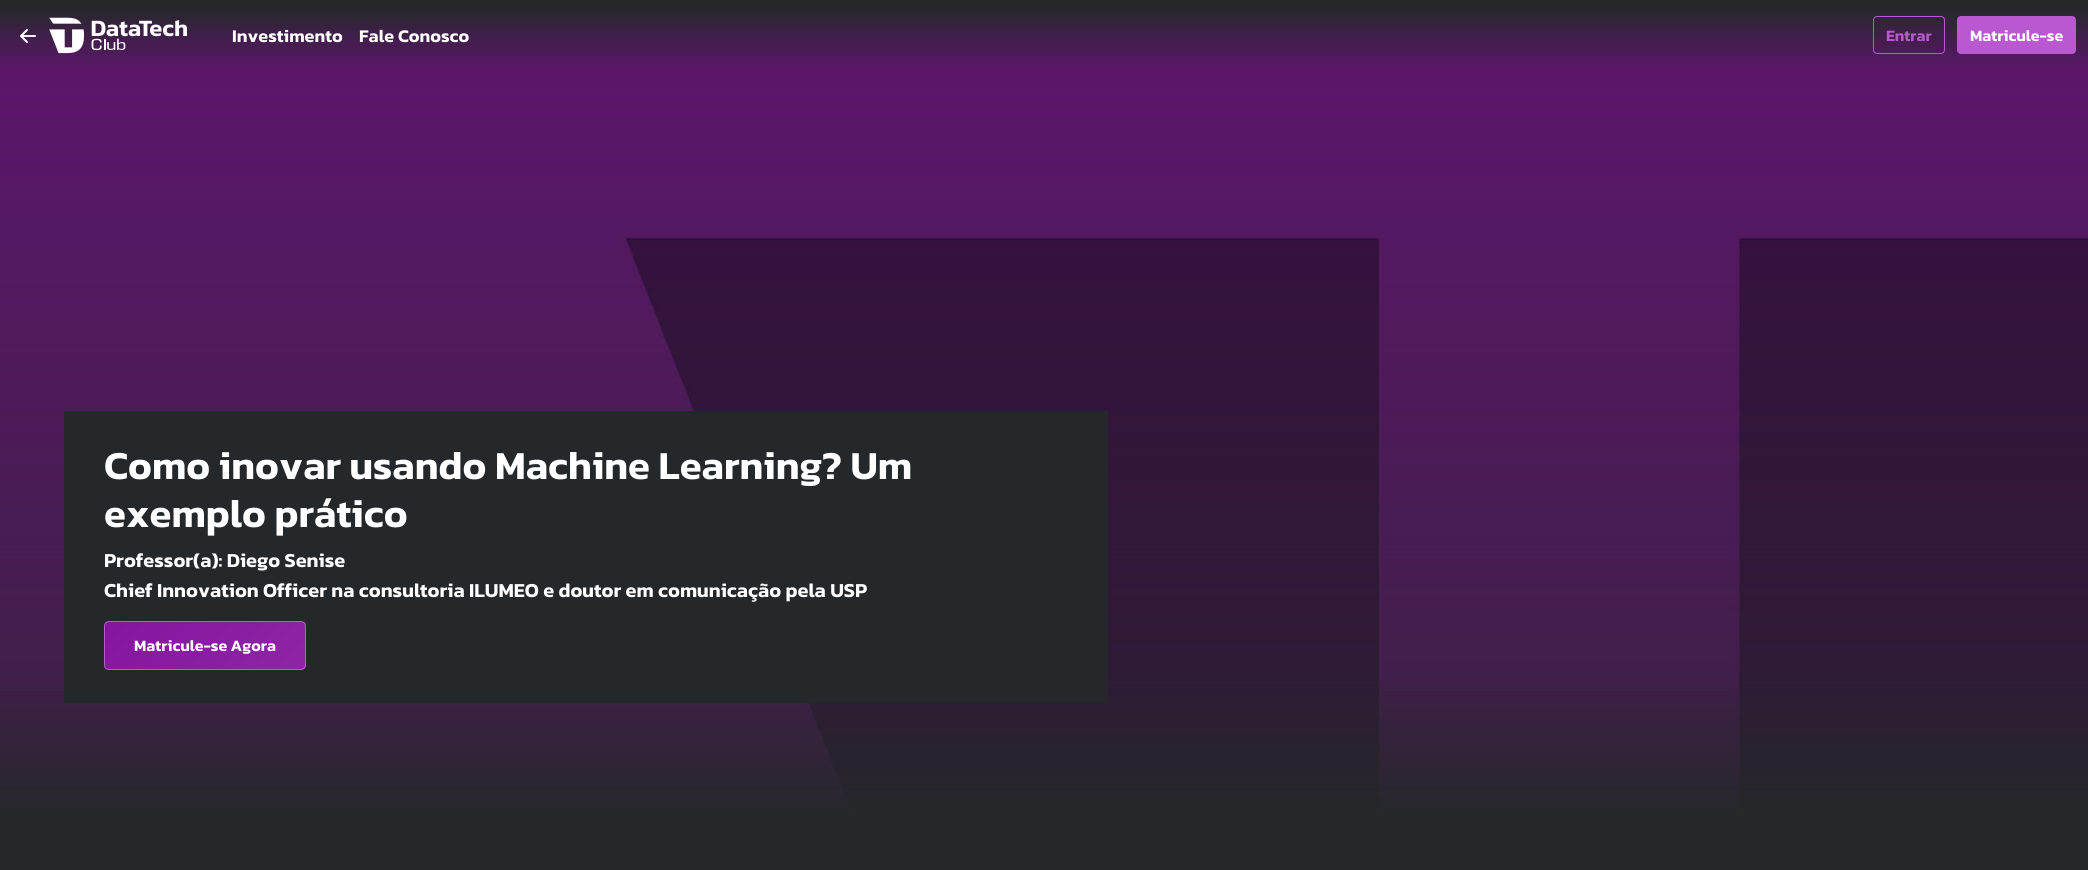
#include <cairo/cairo.h>
#include <math.h>
#include <stddef.h>

static cairo_t *cr;

static void rgb(unsigned color)
{
	cairo_set_source_rgb(cr, (color >> 16) / 255.0, (color >> 8 & 255) / 255.0, (color & 255) / 255.0);
}

static void rrect(double x, double y, double w, double h, double r)
{
	cairo_new_sub_path(cr);
	cairo_arc(cr, x + w - r, y + h - r, r, 0, M_PI / 2);
	cairo_arc(cr, x + r, y + h - r, r, M_PI / 2, M_PI);
	cairo_arc(cr, x + r, y + r, r, M_PI, 1.5 * M_PI);
	cairo_arc(cr, x + w - r, y + r, r, 1.5 * M_PI, 2 * M_PI);
	cairo_close_path(cr);
}

static void image(const char *path, double x, double y, double w, double h)
{
	cairo_surface_t *image = cairo_image_surface_create_from_png(path);
	cairo_save(cr);
	cairo_set_source_surface(cr, image, x, y);
	cairo_rectangle(cr, x, y, w, h);
	cairo_fill(cr);
	cairo_restore(cr);
	cairo_surface_destroy(image);
}

int main(void) {
	cairo_surface_t *surface = cairo_image_surface_create(CAIRO_FORMAT_RGB24, 2088, 870);
	cr = cairo_create(surface);
	cairo_font_options_t *options = cairo_font_options_create();
	cairo_font_options_set_hint_metrics(options, CAIRO_HINT_METRICS_OFF);
	cairo_font_options_set_hint_style(options, CAIRO_HINT_STYLE_NONE);
	cairo_set_font_options(cr, options);
	cairo_set_miter_limit(cr, 4);
	cairo_pattern_t *gradient;
	rgb(0x25282a);
	cairo_paint(cr);
	image("img/3.png", 0, 7, 2088, 810);
	gradient = cairo_pattern_create_linear(1044, 0, 1044, 827);
	cairo_pattern_add_color_stop_rgba(gradient, 0, 0.145, 0.157, 0.165, 0);
	cairo_pattern_add_color_stop_rgba(gradient, 0.8, 0.145, 0.157, 0.165, 0.5);
	cairo_pattern_add_color_stop_rgba(gradient, 0.99, 0.145, 0.157, 0.165, 1);
	cairo_set_source(cr, gradient);
	cairo_pattern_destroy(gradient);
	cairo_rectangle(cr, 0, 44, 2088, 773);
	cairo_fill(cr);
	gradient = cairo_pattern_create_linear(1044, 0, 1044, 70);
	cairo_pattern_add_color_stop_rgba(gradient, 0.1, 0.145, 0.157, 0.165, 1);
	cairo_pattern_add_color_stop_rgba(gradient, 1, 0.145, 0.157, 0.165, 0);
	cairo_set_source(cr, gradient);
	cairo_pattern_destroy(gradient);
	cairo_rectangle(cr, 0, 7, 2088, 61);
	cairo_fill(cr);
	image("img/1.png", 20, 29, 16, 14);
	image("img/2.png", 49, 17, 138, 37);
	rrect(1873.5, 16.5, 71, 37, 3.5);
	rgb(0xba58d1);
	cairo_set_line_width(cr, 1);
	cairo_stroke(cr);
	rrect(1957.5, 16.5, 118, 37, 3.5);
	cairo_fill_preserve(cr);
	cairo_stroke(cr);
	rgb(0x25282a);
	cairo_rectangle(cr, 64, 411, 1044, 292);
	cairo_fill(cr);
	cairo_save(cr);
	rrect(104, 621, 202, 49, 5);
	cairo_clip(cr);
	gradient = cairo_pattern_create_linear(752, 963, 258, 469);
	cairo_pattern_add_color_stop_rgba(gradient, 0, 0.792, 0.408, 0.878, 1);
	cairo_pattern_add_color_stop_rgba(gradient, 0.5, 0.588, 0.208, 0.678, 1);
	cairo_pattern_add_color_stop_rgba(gradient, 1, 0.522, 0.082, 0.62, 1);
	cairo_set_source(cr, gradient);
	cairo_pattern_destroy(gradient);
	cairo_new_path(cr);
	cairo_move_to(cr, 105, 622);
	cairo_line_to(cr, 306, 622);
	cairo_line_to(cr, 306, 665);
	cairo_curve_to(cr, 306, 668, 304, 670, 301, 670);
	cairo_line_to(cr, 105, 670);
	cairo_close_path(cr);
	cairo_fill(cr);
	cairo_restore(cr);
	rrect(104.5, 621.5, 201, 48, 4.5);
	rgb(0xba58d1);
	cairo_stroke(cr);
	cairo_select_font_face(cr, "Kanit SemiBold", CAIRO_FONT_SLANT_NORMAL, CAIRO_FONT_WEIGHT_NORMAL);
	cairo_set_font_size(cr, 18);
	rgb(0xffffff);
	cairo_move_to(cr, 232, 42);
	cairo_show_text(cr, "Investimento");
	cairo_move_to(cr, 359, 42);
	cairo_show_text(cr, "Fale Conosco");
	cairo_set_font_size(cr, 16);
	rgb(0xba58d1);
	cairo_move_to(cr, 1886, 41);
	cairo_show_text(cr, "Entrar");
	rgb(0xffffff);
	cairo_move_to(cr, 1970, 41);
	cairo_show_text(cr, "Matricule-se");
	cairo_set_font_size(cr, 40);
	cairo_move_to(cr, 104, 479);
	cairo_show_text(cr, "Como inovar usando Machine Learning? Um");
	cairo_move_to(cr, 104, 527);
	cairo_show_text(cr, "exemplo prático");
	cairo_set_font_size(cr, 20);
	cairo_move_to(cr, 104, 567);
	cairo_show_text(cr, "Professor(a): Diego Senise");
	cairo_move_to(cr, 104, 597);
	cairo_show_text(cr, "Chief Innovation Officer na consultoria ILUMEO e doutor em comunicação pela USP");
	cairo_set_font_size(cr, 16);
	cairo_move_to(cr, 134, 651);
	cairo_show_text(cr, "Matricule-se Agora");
	cairo_surface_write_to_png(surface, "page.png");
	cairo_font_options_destroy(options);
	cairo_destroy(cr);
	cairo_surface_destroy(surface);
	return 0;
}
